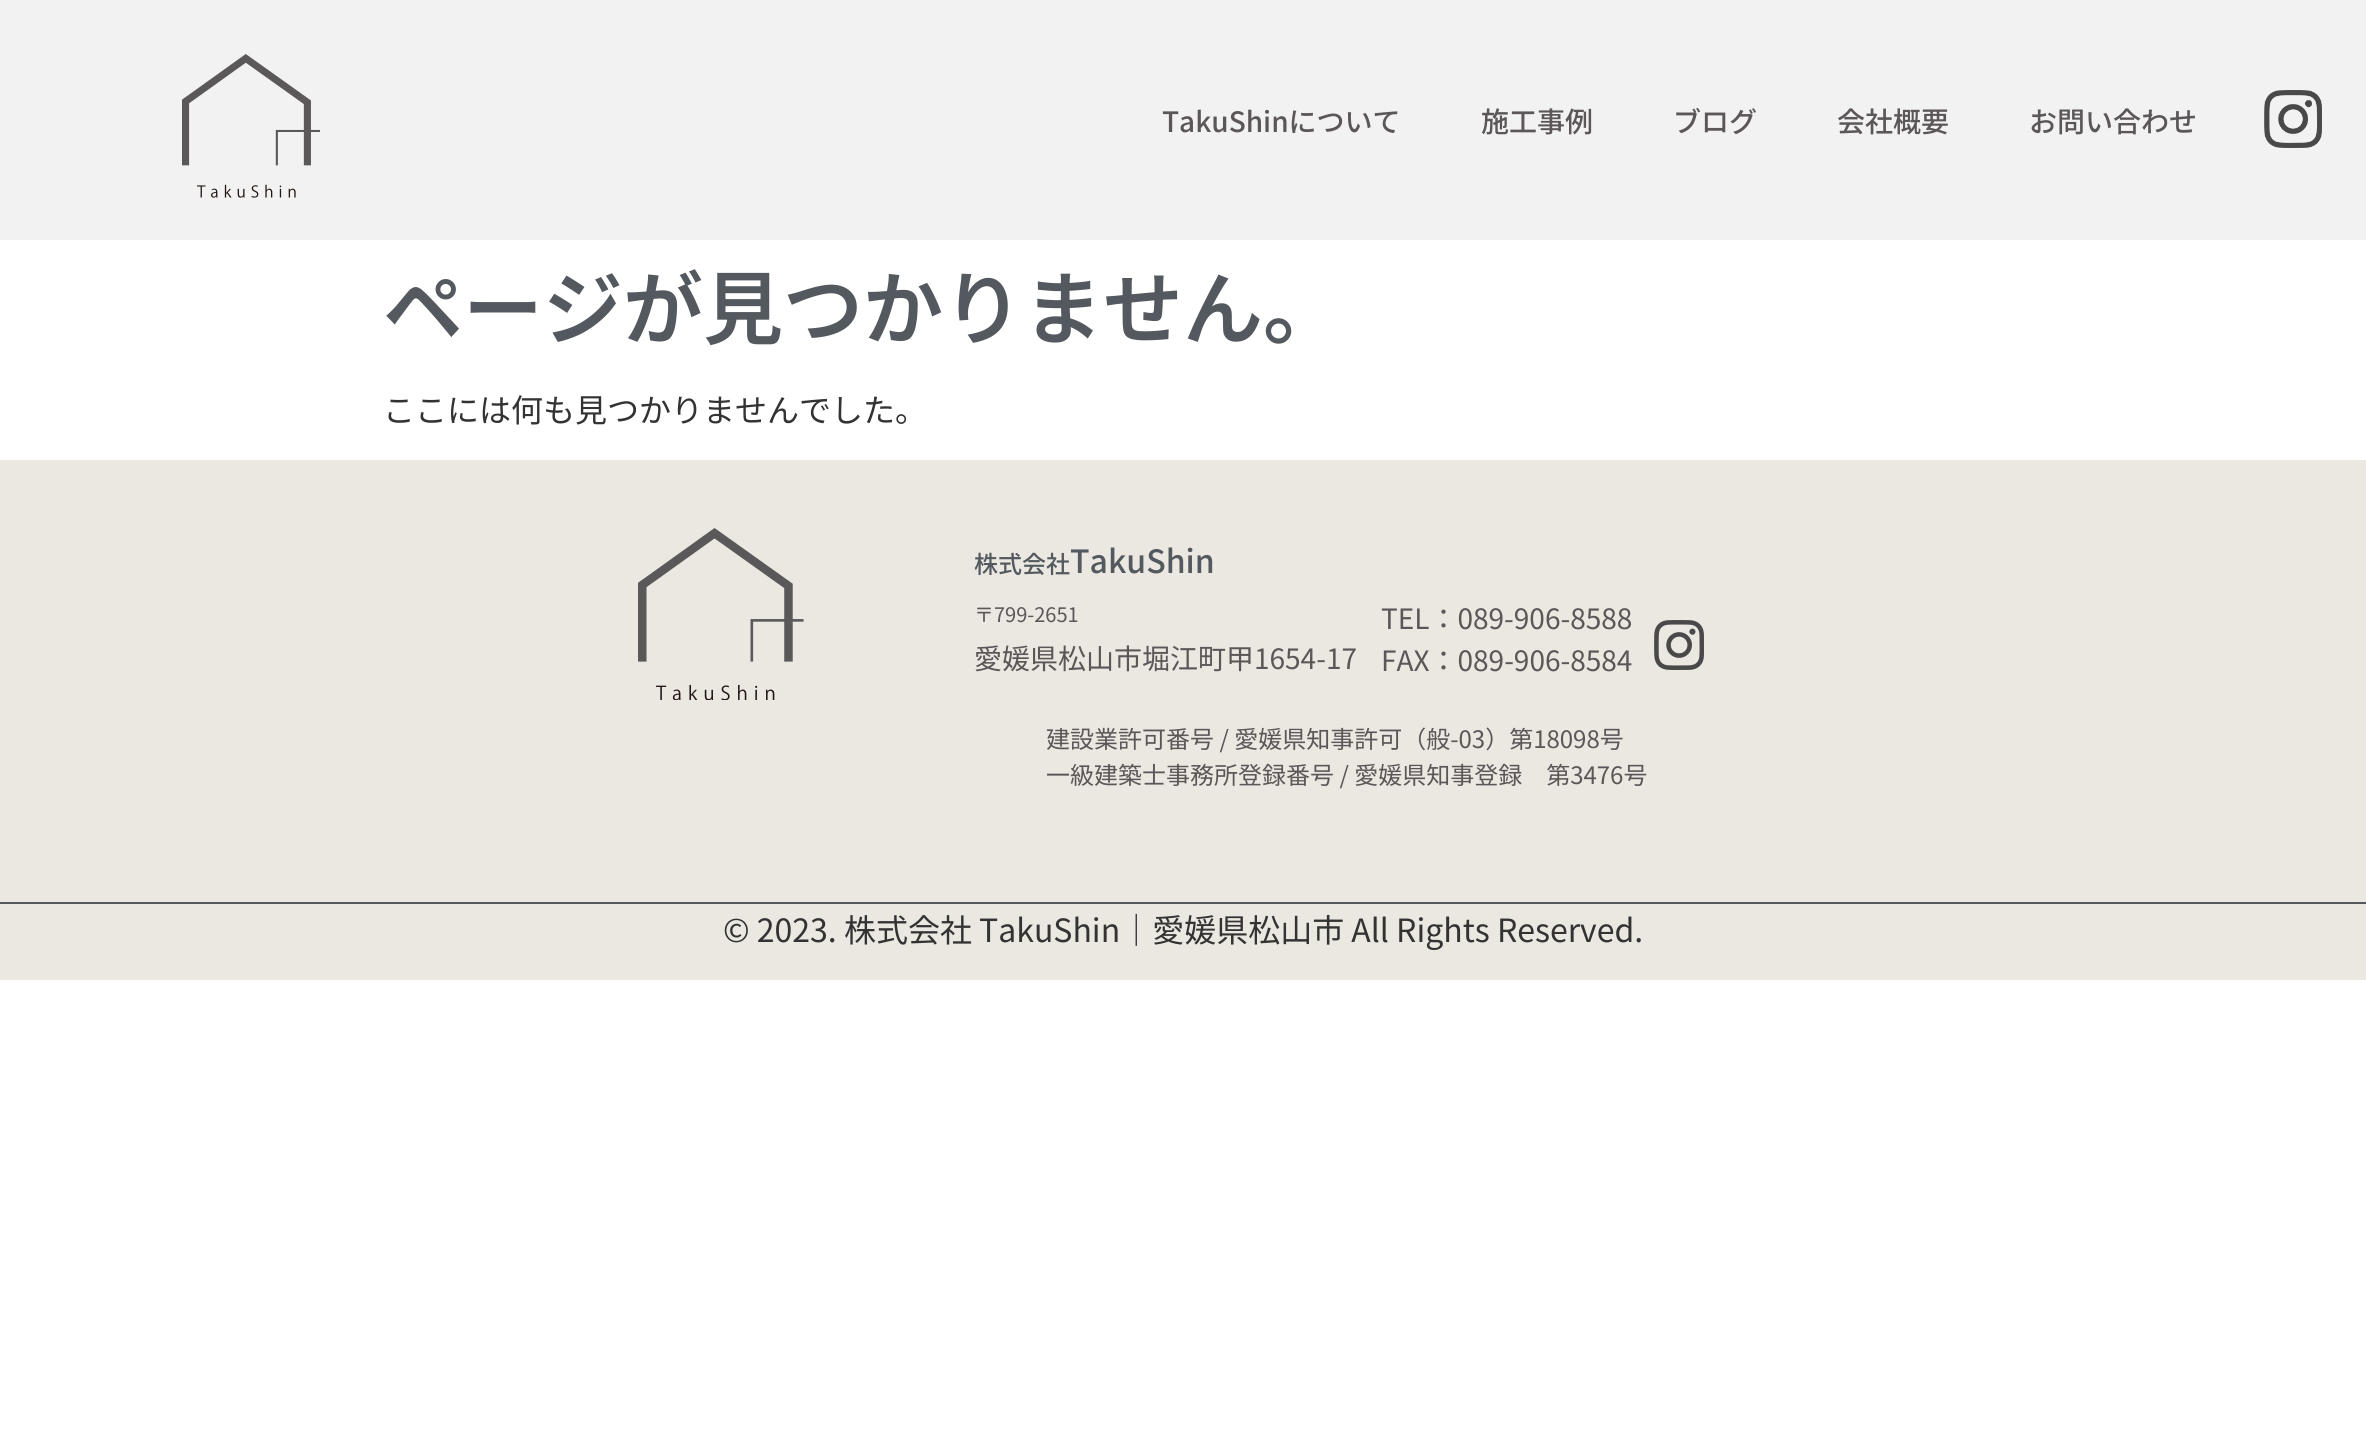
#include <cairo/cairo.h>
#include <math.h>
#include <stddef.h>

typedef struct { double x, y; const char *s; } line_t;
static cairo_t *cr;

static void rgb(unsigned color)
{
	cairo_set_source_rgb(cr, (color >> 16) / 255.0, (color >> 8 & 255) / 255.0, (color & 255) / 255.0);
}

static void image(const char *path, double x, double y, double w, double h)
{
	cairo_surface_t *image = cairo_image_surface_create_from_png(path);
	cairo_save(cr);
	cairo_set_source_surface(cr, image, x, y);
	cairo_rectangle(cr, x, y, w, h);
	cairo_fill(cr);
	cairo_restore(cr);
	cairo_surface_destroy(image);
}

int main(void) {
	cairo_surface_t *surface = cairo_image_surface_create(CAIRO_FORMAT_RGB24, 2366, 1429);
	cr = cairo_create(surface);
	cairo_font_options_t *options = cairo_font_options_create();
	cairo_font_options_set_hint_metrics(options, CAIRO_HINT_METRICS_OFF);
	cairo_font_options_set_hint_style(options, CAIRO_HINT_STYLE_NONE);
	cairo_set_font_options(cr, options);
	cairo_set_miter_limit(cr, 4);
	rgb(0xffffff);
	cairo_paint(cr);
	rgb(0xf2f2f2);
	cairo_rectangle(cr, 0, 0, 2366, 240);
	cairo_fill(cr);
	image("img/1.png", 182, 54, 138, 144);
	image("img/2.png", 2264, 90, 58, 58);
	rgb(0xebe8e1);
	cairo_rectangle(cr, 0, 460, 2366, 520);
	cairo_fill(cr);
	image("img/3.png", 638, 528, 166, 172);
	image("img/4.png", 1654, 620, 50, 50);
	rgb(0x54595f);
	cairo_rectangle(cr, 0, 902, 2366, 2);
	cairo_fill(cr);
	cairo_select_font_face(cr, "Noto Sans JP Medium", CAIRO_FONT_SLANT_NORMAL, CAIRO_FONT_WEIGHT_NORMAL);
	cairo_set_font_size(cr, 28);
	rgb(0x5b5758);
	{
		static const line_t items[] = {
			{1162, 132, "TakuShinについて"},
			{1481, 132, "施工事例"},
			{1673, 132, "ブログ"},
			{1837, 132, "会社概要"},
			{2029, 132, "お問い合わせ"},
		};
		for (size_t i = 0; i < sizeof items / sizeof *items; i++) {
			cairo_move_to(cr, items[i].x, items[i].y);
			cairo_show_text(cr, items[i].s);
		}
	}
	cairo_select_font_face(cr, "Noto Sans JP SemiBold", CAIRO_FONT_SLANT_NORMAL, CAIRO_FONT_WEIGHT_NORMAL);
	cairo_set_font_size(cr, 80);
	rgb(0x54595f);
	cairo_move_to(cr, 383, 338);
	cairo_show_text(cr, "ページが見つかりません。");
	cairo_select_font_face(cr, "Noto Sans JP", CAIRO_FONT_SLANT_NORMAL, CAIRO_FONT_WEIGHT_NORMAL);
	cairo_set_font_size(cr, 32);
	rgb(0x333333);
	cairo_move_to(cr, 383, 422);
	cairo_show_text(cr, "ここには何も見つかりませんでした。");
	cairo_select_font_face(cr, "Noto Sans JP Medium", CAIRO_FONT_SLANT_NORMAL, CAIRO_FONT_WEIGHT_NORMAL);
	cairo_set_font_size(cr, 24);
	rgb(0x54595f);
	cairo_move_to(cr, 974, 573);
	cairo_show_text(cr, "株式会社");
	cairo_set_font_size(cr, 32);
	cairo_move_to(cr, 1070, 573);
	cairo_show_text(cr, "TakuShin");
	cairo_select_font_face(cr, "Noto Sans JP", CAIRO_FONT_SLANT_NORMAL, CAIRO_FONT_WEIGHT_NORMAL);
	cairo_set_font_size(cr, 20);
	rgb(0x5b5758);
	cairo_move_to(cr, 974, 622);
	cairo_show_text(cr, "〒799-2651");
	cairo_set_font_size(cr, 28);
	{
		static const line_t items[] = {
			{974, 669, "愛媛県松山市堀江町甲1654-17"},
			{1381, 629, "TEL：089-906-8588"},
			{1381, 671, "FAX：089-906-8584"},
		};
		for (size_t i = 0; i < sizeof items / sizeof *items; i++) {
			cairo_move_to(cr, items[i].x, items[i].y);
			cairo_show_text(cr, items[i].s);
		}
	}
	cairo_set_font_size(cr, 24);
	cairo_move_to(cr, 1046, 748);
	cairo_show_text(cr, "建設業許可番号 / 愛媛県知事許可（般-03）第18098号");
	cairo_move_to(cr, 1046, 784);
	cairo_show_text(cr, "一級建築士事務所登録番号 / 愛媛県知事登録　第3476号");
	cairo_set_font_size(cr, 32);
	rgb(0x333333);
	cairo_move_to(cr, 723, 942);
	cairo_show_text(cr, "© 2023. 株式会社 TakuShin｜愛媛県松山市 All Rights Reserved.");
	cairo_surface_write_to_png(surface, "page.png");
	cairo_font_options_destroy(options);
	cairo_destroy(cr);
	cairo_surface_destroy(surface);
	return 0;
}
